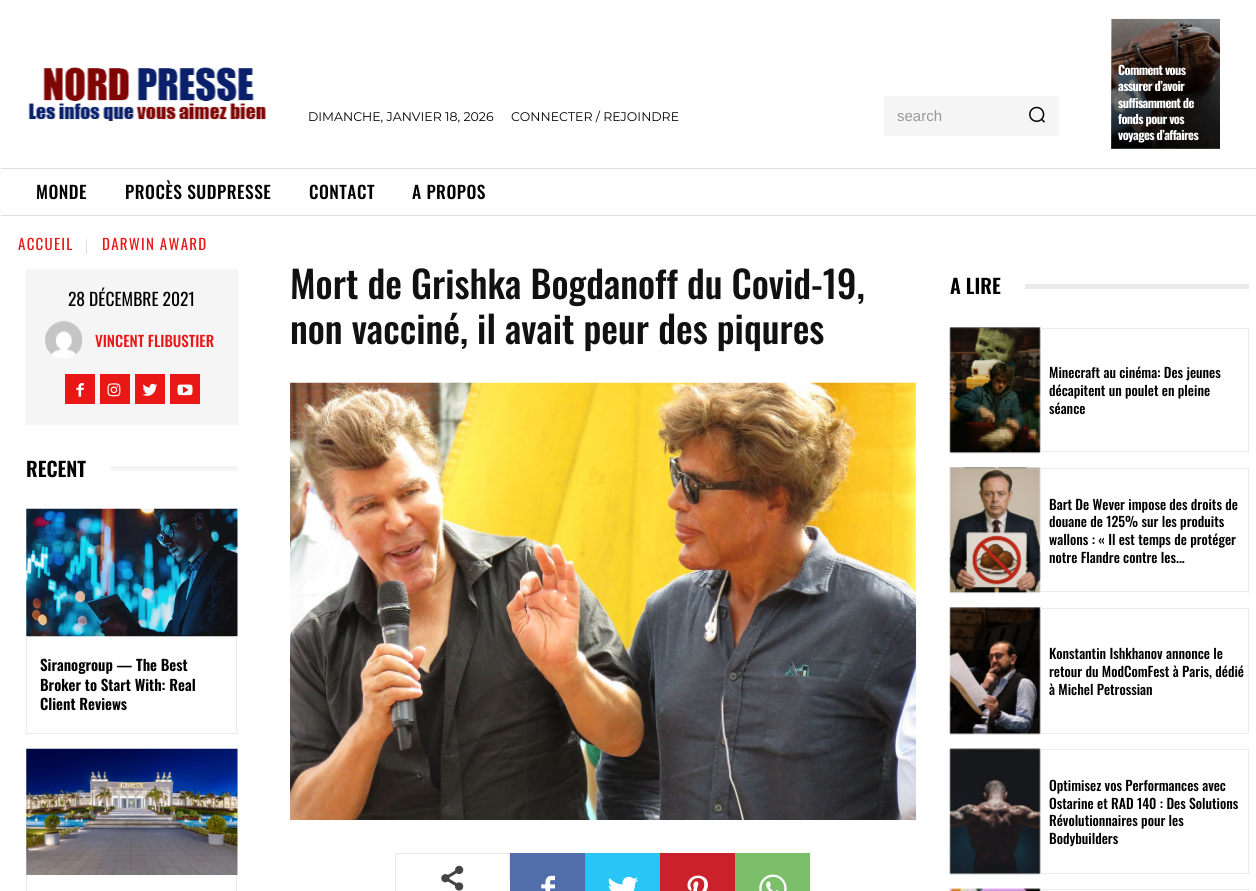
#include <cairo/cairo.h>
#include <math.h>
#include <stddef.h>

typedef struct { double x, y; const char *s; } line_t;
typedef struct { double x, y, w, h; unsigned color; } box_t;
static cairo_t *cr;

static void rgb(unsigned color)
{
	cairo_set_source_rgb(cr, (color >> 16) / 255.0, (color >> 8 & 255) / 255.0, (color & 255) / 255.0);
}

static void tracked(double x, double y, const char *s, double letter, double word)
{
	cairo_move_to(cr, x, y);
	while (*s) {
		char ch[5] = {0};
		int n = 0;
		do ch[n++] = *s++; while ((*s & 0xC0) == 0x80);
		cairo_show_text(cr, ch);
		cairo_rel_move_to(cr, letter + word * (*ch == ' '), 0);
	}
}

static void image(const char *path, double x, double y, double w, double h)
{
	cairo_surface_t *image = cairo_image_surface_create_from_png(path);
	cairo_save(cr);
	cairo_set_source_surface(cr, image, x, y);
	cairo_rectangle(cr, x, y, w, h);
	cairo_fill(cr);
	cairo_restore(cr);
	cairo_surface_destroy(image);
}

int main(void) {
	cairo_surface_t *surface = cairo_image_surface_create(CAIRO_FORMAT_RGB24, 1256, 891);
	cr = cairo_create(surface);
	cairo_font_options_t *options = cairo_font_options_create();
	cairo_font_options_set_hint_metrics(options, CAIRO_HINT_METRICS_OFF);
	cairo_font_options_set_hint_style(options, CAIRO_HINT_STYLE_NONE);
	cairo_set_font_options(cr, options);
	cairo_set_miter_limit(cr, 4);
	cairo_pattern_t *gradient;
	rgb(0xffffff);
	cairo_paint(cr);
	image("img/1.png", 28, 67, 238, 54);
	rgb(0xf5f5f5);
	cairo_rectangle(cr, 884, 96, 175, 40);
	cairo_fill(cr);
	image("img/2.png", 1029, 106, 16, 17);
	image("img/3.png", 1111, 18, 109, 131);
	gradient = cairo_pattern_create_linear(1166, 149, 1166, 19);
	cairo_pattern_add_color_stop_rgba(gradient, 0, 0, 0, 0, 0.7);
	cairo_pattern_add_color_stop_rgba(gradient, 1, 0, 0, 0, 0);
	cairo_set_source(cr, gradient);
	cairo_pattern_destroy(gradient);
	cairo_rectangle(cr, 1111, 23, 109, 126);
	cairo_fill(cr);
	{
		static const box_t items[] = {
			{1, 168, 1255, 1, 0xdddddd},
			{1, 215, 1255, 1, 0xdddddd},
			{86, 239, 1, 15, 0xdddddd},
			{26, 269, 212, 156, 0xf5f5f5},
		};
		for (size_t i = 0; i < sizeof items / sizeof *items; i++) {
			rgb(items[i].color);
			cairo_rectangle(cr, items[i].x, items[i].y, items[i].w, items[i].h);
			cairo_fill(cr);
		}
	}
	image("img/4.png", 45, 321, 38, 38);
	rgb(0xea1717);
	cairo_rectangle(cr, 65, 374, 30, 30);
	cairo_fill(cr);
	image("img/5.png", 76, 383, 8, 14);
	cairo_rectangle(cr, 100, 374, 30, 30);
	cairo_fill(cr);
	image("img/6.png", 107, 383, 14, 14);
	cairo_rectangle(cr, 135, 374, 30, 30);
	cairo_fill(cr);
	image("img/7.png", 142, 383, 16, 13);
	cairo_rectangle(cr, 170, 374, 30, 30);
	cairo_fill(cr);
	image("img/8.png", 177, 384, 16, 12);
	rgb(0xf5f5f5);
	cairo_rectangle(cr, 111, 466, 127, 5);
	cairo_fill(cr);
	image("img/9.png", 26, 508, 212, 129);
	{
		static const box_t items[] = {
			{236, 636, 1, 98, 0xeaeaea},
			{26, 733, 212, 1, 0xeaeaea},
			{26, 636, 1, 98, 0xeaeaea},
		};
		for (size_t i = 0; i < sizeof items / sizeof *items; i++) {
			rgb(items[i].color);
			cairo_rectangle(cr, items[i].x, items[i].y, items[i].w, items[i].h);
			cairo_fill(cr);
		}
	}
	image("img/10.png", 26, 748, 212, 127);
	cairo_rectangle(cr, 236, 875, 1, 16);
	cairo_fill(cr);
	cairo_rectangle(cr, 26, 875, 1, 16);
	cairo_fill(cr);
	image("img/11.png", 290, 382, 627, 438);
	cairo_rectangle(cr, 395.5, 853.5, 114, 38);
	rgb(0xe9e9e9);
	cairo_set_line_width(cr, 1);
	cairo_stroke(cr);
	image("img/12.png", 441, 865, 23, 26);
	cairo_new_path(cr);
	cairo_move_to(cr, 509, 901);
	cairo_line_to(cr, 509, 879);
	cairo_line_to(cr, 522.5, 890);
	cairo_close_path(cr);
	cairo_fill(cr);
	rgb(0xffffff);
	cairo_new_path(cr);
	cairo_move_to(cr, 509, 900);
	cairo_line_to(cr, 509, 880);
	cairo_line_to(cr, 521, 890);
	cairo_close_path(cr);
	cairo_fill(cr);
	rgb(0x516eab);
	cairo_rectangle(cr, 510, 853, 75, 38);
	cairo_fill(cr);
	image("img/13.png", 541, 875, 14, 16);
	rgb(0x29c5f6);
	cairo_rectangle(cr, 585, 853, 75, 38);
	cairo_fill(cr);
	image("img/14.png", 608, 876, 31, 15);
	rgb(0xca212a);
	cairo_rectangle(cr, 660, 853, 75, 38);
	cairo_fill(cr);
	image("img/15.png", 687, 875, 21, 16);
	rgb(0x7bbf6a);
	cairo_rectangle(cr, 735, 853, 75, 38);
	cairo_fill(cr);
	image("img/16.png", 759, 874, 28, 17);
	rgb(0xeaeaea);
	cairo_rectangle(cr, 1025, 284, 224, 5);
	cairo_fill(cr);
	image("img/17.png", 949, 327, 92, 127);
	{
		static const box_t items[] = {
			{1040, 328, 209, 1, 0xeaeaea},
			{1248, 328, 1, 125, 0xeaeaea},
			{1040, 451, 209, 1, 0xeaeaea},
		};
		for (size_t i = 0; i < sizeof items / sizeof *items; i++) {
			rgb(items[i].color);
			cairo_rectangle(cr, items[i].x, items[i].y, items[i].w, items[i].h);
			cairo_fill(cr);
		}
	}
	image("img/18.png", 949, 467, 92, 127);
	{
		static const box_t items[] = {
			{1040, 468, 209, 1, 0xeaeaea},
			{1248, 468, 1, 125, 0xeaeaea},
			{1040, 591, 209, 1, 0xeaeaea},
		};
		for (size_t i = 0; i < sizeof items / sizeof *items; i++) {
			rgb(items[i].color);
			cairo_rectangle(cr, items[i].x, items[i].y, items[i].w, items[i].h);
			cairo_fill(cr);
		}
	}
	image("img/19.png", 949, 607, 92, 128);
	{
		static const box_t items[] = {
			{1040, 608, 209, 1, 0xeaeaea},
			{1248, 608, 1, 126, 0xeaeaea},
			{1040, 733, 209, 1, 0xeaeaea},
		};
		for (size_t i = 0; i < sizeof items / sizeof *items; i++) {
			rgb(items[i].color);
			cairo_rectangle(cr, items[i].x, items[i].y, items[i].w, items[i].h);
			cairo_fill(cr);
		}
	}
	image("img/20.png", 949, 748, 92, 127);
	{
		static const box_t items[] = {
			{1040, 749, 209, 1, 0xeaeaea},
			{1248, 749, 1, 125, 0xeaeaea},
			{1040, 873, 209, 1, 0xeaeaea},
		};
		for (size_t i = 0; i < sizeof items / sizeof *items; i++) {
			rgb(items[i].color);
			cairo_rectangle(cr, items[i].x, items[i].y, items[i].w, items[i].h);
			cairo_fill(cr);
		}
	}
	image("img/21.png", 949, 888, 92, 3);
	cairo_rectangle(cr, 1040, 889, 209, 1);
	cairo_fill(cr);
	cairo_rectangle(cr, 1248, 889, 1, 2);
	cairo_fill(cr);
	cairo_select_font_face(cr, "Montserrat", CAIRO_FONT_SLANT_NORMAL, CAIRO_FONT_WEIGHT_NORMAL);
	cairo_set_font_size(cr, 12.5);
	rgb(0x000000);
	cairo_move_to(cr, 308, 121);
	cairo_show_text(cr, "DIMANCHE, JANVIER 18, 2026");
	cairo_move_to(cr, 511, 121);
	cairo_show_text(cr, "CONNECTER / REJOINDRE");
	cairo_select_font_face(cr, "Liberation Sans", CAIRO_FONT_SLANT_NORMAL, CAIRO_FONT_WEIGHT_NORMAL);
	cairo_set_font_size(cr, 15);
	rgb(0x999999);
	cairo_move_to(cr, 897, 121);
	cairo_show_text(cr, "search");
	cairo_select_font_face(cr, "Oswald", CAIRO_FONT_SLANT_NORMAL, CAIRO_FONT_WEIGHT_BOLD);
	cairo_set_font_size(cr, 12.5);
	rgb(0xffffff);
	{
		static const line_t items[] = {
			{1118, 75, "Comment vous"},
			{1118, 91, "assurer d’avoir"},
			{1118, 108, "suffisamment de"},
			{1118, 124, "fonds pour vos"},
			{1118, 140, "voyages d’affaires"},
		};
		for (size_t i = 0; i < sizeof items / sizeof *items; i++) {
			tracked(items[i].x, items[i].y, items[i].s, -0.6, 0);
		}
	}
	cairo_select_font_face(cr, "Oswald Medium", CAIRO_FONT_SLANT_NORMAL, CAIRO_FONT_WEIGHT_NORMAL);
	cairo_set_font_size(cr, 17.5);
	rgb(0x000000);
	{
		static const line_t items[] = {
			{36, 199, "MONDE"},
			{125, 199, "PROCÈS SUDPRESSE"},
			{309, 199, "CONTACT"},
			{412, 199, "A PROPOS"},
		};
		for (size_t i = 0; i < sizeof items / sizeof *items; i++) {
			tracked(items[i].x, items[i].y, items[i].s, 0.5, 0);
		}
	}
	cairo_select_font_face(cr, "Oswald", CAIRO_FONT_SLANT_NORMAL, CAIRO_FONT_WEIGHT_NORMAL);
	cairo_set_font_size(cr, 15);
	rgb(0xea1717);
	tracked(18, 250, "ACCUEIL", 1.25, 0);
	tracked(102, 250, "DARWIN AWARD", 1.25, 0);
	cairo_set_font_size(cr, 17.5);
	rgb(0x000000);
	cairo_move_to(cr, 68, 306);
	cairo_show_text(cr, "28 DÉCEMBRE 2021");
	cairo_select_font_face(cr, "Oswald Medium", CAIRO_FONT_SLANT_NORMAL, CAIRO_FONT_WEIGHT_NORMAL);
	cairo_set_font_size(cr, 15);
	rgb(0xea1717);
	cairo_move_to(cr, 95, 347);
	cairo_show_text(cr, "VINCENT FLIBUSTIER");
	cairo_select_font_face(cr, "Oswald SemiBold", CAIRO_FONT_SLANT_NORMAL, CAIRO_FONT_WEIGHT_NORMAL);
	cairo_set_font_size(cr, 20);
	rgb(0x000000);
	cairo_move_to(cr, 26, 477);
	cairo_show_text(cr, "RECENT");
	cairo_set_font_size(cr, 15);
	{
		static const line_t items[] = {
			{40, 671, "Siranogroup — The Best"},
			{40, 691, "Broker to Start With: Real"},
			{40, 710, "Client Reviews"},
		};
		for (size_t i = 0; i < sizeof items / sizeof *items; i++) {
			cairo_move_to(cr, items[i].x, items[i].y);
			cairo_show_text(cr, items[i].s);
		}
	}
	cairo_select_font_face(cr, "Oswald Medium", CAIRO_FONT_SLANT_NORMAL, CAIRO_FONT_WEIGHT_NORMAL);
	cairo_set_font_size(cr, 37.5);
	rgb(0x111111);
	cairo_move_to(cr, 290, 299);
	cairo_show_text(cr, "Mort de Grishka Bogdanoff du Covid-19,");
	cairo_move_to(cr, 290, 344);
	cairo_show_text(cr, "non vacciné, il avait peur des piqures");
	cairo_select_font_face(cr, "Oswald SemiBold", CAIRO_FONT_SLANT_NORMAL, CAIRO_FONT_WEIGHT_NORMAL);
	cairo_set_font_size(cr, 20);
	rgb(0x000000);
	cairo_move_to(cr, 950, 294);
	cairo_show_text(cr, "A LIRE");
	cairo_select_font_face(cr, "Oswald Medium", CAIRO_FONT_SLANT_NORMAL, CAIRO_FONT_WEIGHT_NORMAL);
	cairo_set_font_size(cr, 13.75);
	{
		static const line_t items[] = {
			{1049, 378, "Minecraft au cinéma: Des jeunes"},
			{1049, 396, "décapitent un poulet en pleine"},
			{1049, 414, "séance"},
			{1049, 510, "Bart De Wever impose des droits de"},
			{1049, 527, "douane de 125% sur les produits"},
			{1049, 545, "wallons : « Il est temps de protéger"},
			{1049, 563, "notre Flandre contre les..."},
			{1049, 659, "Konstantin Ishkhanov annonce le"},
			{1049, 677, "retour du ModComFest à Paris, dédié"},
			{1049, 695, "à Michel Petrossian"},
			{1049, 791, "Optimisez vos Performances avec"},
			{1049, 809, "Ostarine et RAD 140 : Des Solutions"},
			{1049, 826, "Révolutionnaires pour les"},
			{1049, 844, "Bodybuilders"},
		};
		for (size_t i = 0; i < sizeof items / sizeof *items; i++) {
			cairo_move_to(cr, items[i].x, items[i].y);
			cairo_show_text(cr, items[i].s);
		}
	}
	cairo_surface_write_to_png(surface, "page.png");
	cairo_font_options_destroy(options);
	cairo_destroy(cr);
	cairo_surface_destroy(surface);
	return 0;
}
